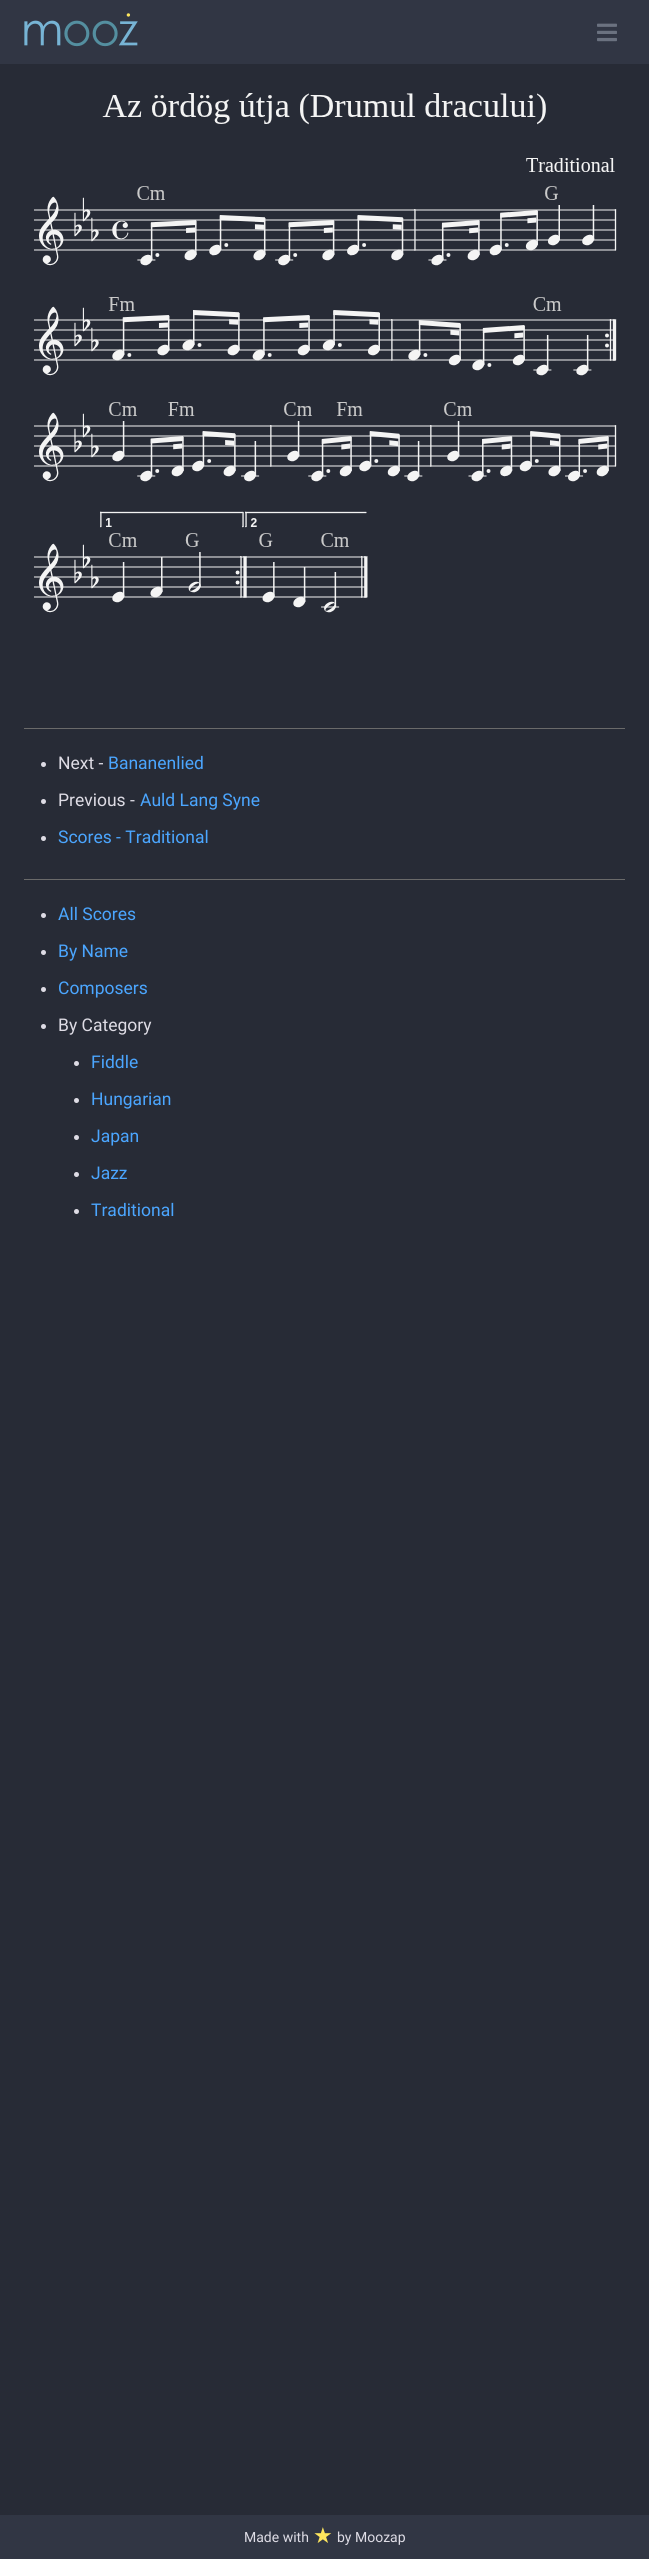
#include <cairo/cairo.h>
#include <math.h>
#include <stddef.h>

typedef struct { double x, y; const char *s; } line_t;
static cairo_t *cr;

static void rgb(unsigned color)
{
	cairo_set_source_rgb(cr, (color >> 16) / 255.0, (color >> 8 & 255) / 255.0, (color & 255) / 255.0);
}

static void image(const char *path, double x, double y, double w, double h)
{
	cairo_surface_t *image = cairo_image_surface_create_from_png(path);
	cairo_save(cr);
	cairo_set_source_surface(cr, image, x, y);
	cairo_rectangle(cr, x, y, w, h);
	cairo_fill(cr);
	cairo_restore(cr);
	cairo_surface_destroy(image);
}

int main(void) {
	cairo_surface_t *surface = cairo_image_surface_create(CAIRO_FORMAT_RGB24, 649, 2559);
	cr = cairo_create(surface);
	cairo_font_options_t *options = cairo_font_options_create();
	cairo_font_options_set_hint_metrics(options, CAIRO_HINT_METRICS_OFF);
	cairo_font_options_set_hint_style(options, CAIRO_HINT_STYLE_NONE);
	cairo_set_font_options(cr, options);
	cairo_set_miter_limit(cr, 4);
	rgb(0x272b36);
	cairo_paint(cr);
	rgb(0x313644);
	cairo_rectangle(cr, 0, 0, 649, 64);
	cairo_fill(cr);
	image("img/1.png", 24, 13, 114, 34);
	image("img/2.png", 597, 23, 20, 19);
	image("img/3.png", 34, 93, 583, 520);
	rgb(0x6a6a6a);
	cairo_rectangle(cr, 24, 728, 601, 1);
	cairo_fill(cr);
	rgb(0xdedce5);
	cairo_arc(cr, 43.5, 764.5, 2.5, 0, 2 * M_PI);
	cairo_fill(cr);
	cairo_arc(cr, 43.5, 801.5, 2.5, 0, 2 * M_PI);
	cairo_fill(cr);
	cairo_arc(cr, 43.5, 838.5, 2.5, 0, 2 * M_PI);
	cairo_fill(cr);
	rgb(0x6a6a6a);
	cairo_rectangle(cr, 24, 879, 601, 1);
	cairo_fill(cr);
	rgb(0xdedce5);
	cairo_arc(cr, 43.5, 915.5, 2.5, 0, 2 * M_PI);
	cairo_fill(cr);
	cairo_arc(cr, 43.5, 952.5, 2.5, 0, 2 * M_PI);
	cairo_fill(cr);
	cairo_arc(cr, 43.5, 989.5, 2.5, 0, 2 * M_PI);
	cairo_fill(cr);
	cairo_arc(cr, 43.5, 1026.5, 2.5, 0, 2 * M_PI);
	cairo_fill(cr);
	cairo_arc(cr, 76.5, 1063.5, 2.5, 0, 2 * M_PI);
	cairo_fill(cr);
	cairo_arc(cr, 76.5, 1100.5, 2.5, 0, 2 * M_PI);
	cairo_fill(cr);
	cairo_arc(cr, 76.5, 1137.5, 2.5, 0, 2 * M_PI);
	cairo_fill(cr);
	cairo_arc(cr, 76.5, 1174.5, 2.5, 0, 2 * M_PI);
	cairo_fill(cr);
	cairo_arc(cr, 76.5, 1211.5, 2.5, 0, 2 * M_PI);
	cairo_fill(cr);
	rgb(0x313644);
	cairo_rectangle(cr, 0, 2515, 649, 44);
	cairo_fill(cr);
	cairo_select_font_face(cr, "Roboto", CAIRO_FONT_SLANT_NORMAL, CAIRO_FONT_WEIGHT_NORMAL);
	cairo_set_font_size(cr, 17.5);
	rgb(0xdedce5);
	cairo_move_to(cr, 58, 769);
	cairo_show_text(cr, "Next -");
	rgb(0x4ba6ff);
	cairo_move_to(cr, 108, 769);
	cairo_show_text(cr, "Bananenlied");
	rgb(0xdedce5);
	cairo_move_to(cr, 58, 806);
	cairo_show_text(cr, "Previous -");
	rgb(0x4ba6ff);
	{
		static const line_t items[] = {
			{140, 806, "Auld Lang Syne"},
			{58, 843, "Scores - Traditional"},
			{58, 920, "All Scores"},
			{58, 957, "By Name"},
			{58, 994, "Composers"},
		};
		for (size_t i = 0; i < sizeof items / sizeof *items; i++) {
			cairo_move_to(cr, items[i].x, items[i].y);
			cairo_show_text(cr, items[i].s);
		}
	}
	rgb(0xdedce5);
	cairo_move_to(cr, 58, 1031);
	cairo_show_text(cr, "By Category");
	rgb(0x4ba6ff);
	{
		static const line_t items[] = {
			{91, 1068, "Fiddle"},
			{91, 1105, "Hungarian"},
			{91, 1142, "Japan"},
			{91, 1179, "Jazz"},
			{91, 1216, "Traditional"},
		};
		for (size_t i = 0; i < sizeof items / sizeof *items; i++) {
			cairo_move_to(cr, items[i].x, items[i].y);
			cairo_show_text(cr, items[i].s);
		}
	}
	cairo_set_font_size(cr, 14);
	rgb(0xdedce5);
	cairo_move_to(cr, 244, 2542);
	cairo_show_text(cr, "Made with");
	cairo_select_font_face(cr, "DejaVu Sans", CAIRO_FONT_SLANT_NORMAL, CAIRO_FONT_WEIGHT_NORMAL);
	cairo_set_font_size(cr, 22);
	rgb(0xffe75d);
	cairo_move_to(cr, 313, 2543);
	cairo_show_text(cr, "★");
	cairo_select_font_face(cr, "Roboto", CAIRO_FONT_SLANT_NORMAL, CAIRO_FONT_WEIGHT_NORMAL);
	cairo_set_font_size(cr, 14);
	rgb(0xdedce5);
	cairo_move_to(cr, 337, 2542);
	cairo_show_text(cr, "by Moozap");
	cairo_surface_write_to_png(surface, "page.png");
	cairo_font_options_destroy(options);
	cairo_destroy(cr);
	cairo_surface_destroy(surface);
	return 0;
}
